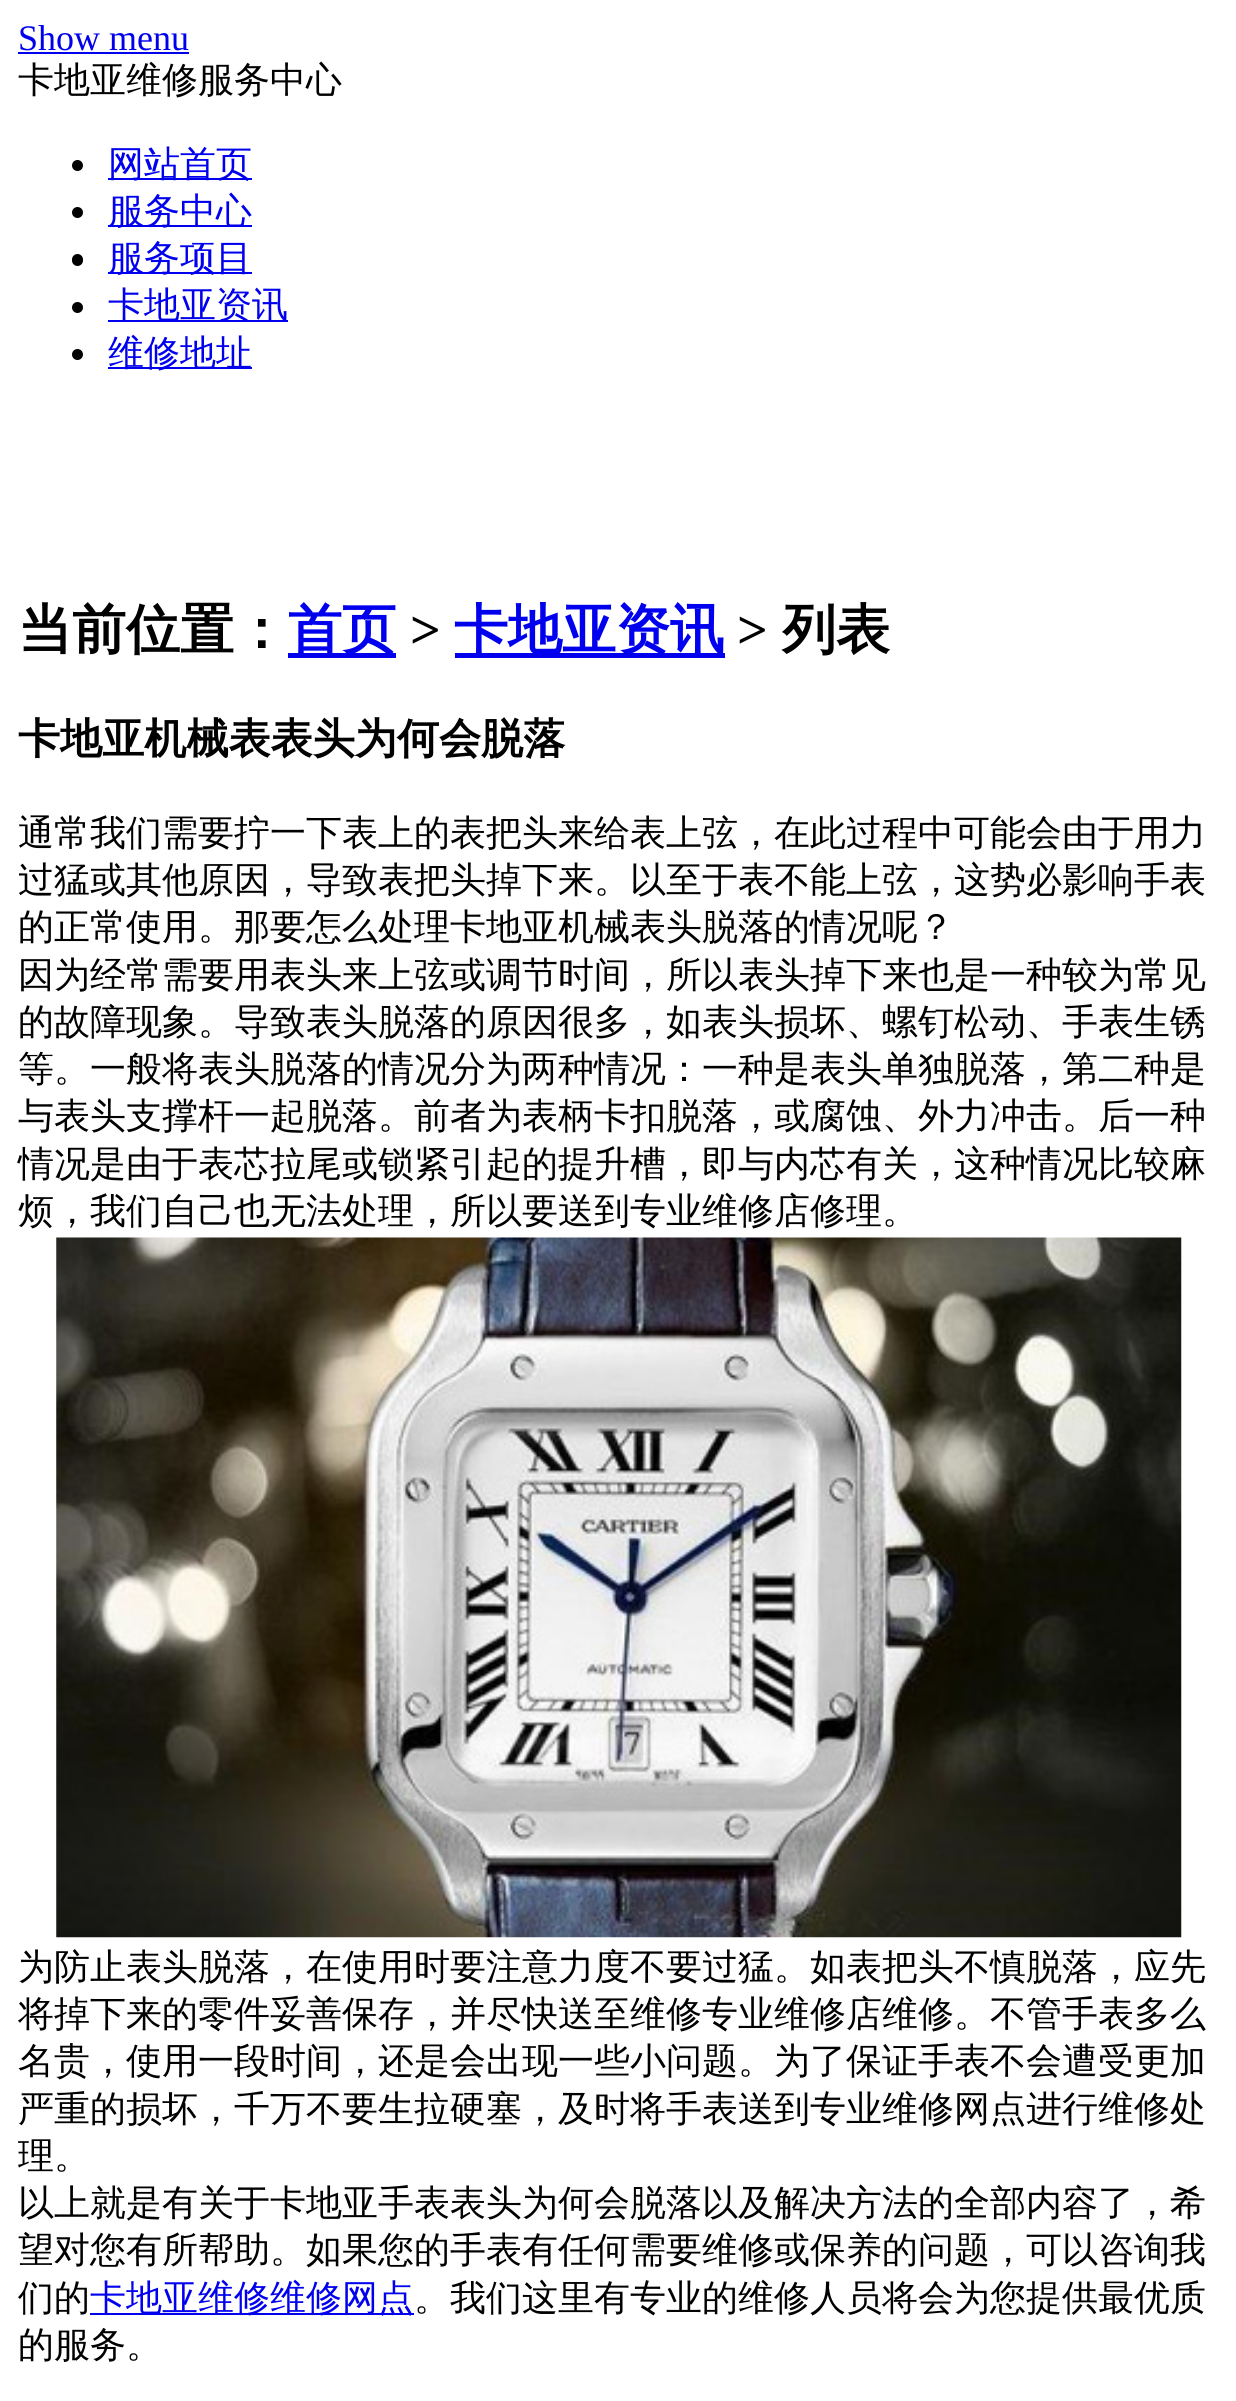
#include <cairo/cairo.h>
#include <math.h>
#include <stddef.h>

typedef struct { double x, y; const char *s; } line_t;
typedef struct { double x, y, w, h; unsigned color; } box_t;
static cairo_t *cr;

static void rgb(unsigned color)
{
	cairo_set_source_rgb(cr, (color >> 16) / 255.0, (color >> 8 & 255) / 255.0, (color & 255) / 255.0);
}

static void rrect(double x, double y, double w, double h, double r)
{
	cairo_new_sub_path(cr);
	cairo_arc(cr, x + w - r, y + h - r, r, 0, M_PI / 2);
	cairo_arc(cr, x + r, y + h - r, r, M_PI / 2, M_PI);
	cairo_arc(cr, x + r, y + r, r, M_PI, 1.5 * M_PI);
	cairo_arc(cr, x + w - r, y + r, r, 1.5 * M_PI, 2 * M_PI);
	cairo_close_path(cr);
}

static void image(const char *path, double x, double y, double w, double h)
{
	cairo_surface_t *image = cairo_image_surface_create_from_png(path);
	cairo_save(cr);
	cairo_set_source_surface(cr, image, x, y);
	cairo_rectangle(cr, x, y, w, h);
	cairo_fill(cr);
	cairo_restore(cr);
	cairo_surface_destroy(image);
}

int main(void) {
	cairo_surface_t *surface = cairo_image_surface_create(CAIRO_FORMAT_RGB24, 1236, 2401);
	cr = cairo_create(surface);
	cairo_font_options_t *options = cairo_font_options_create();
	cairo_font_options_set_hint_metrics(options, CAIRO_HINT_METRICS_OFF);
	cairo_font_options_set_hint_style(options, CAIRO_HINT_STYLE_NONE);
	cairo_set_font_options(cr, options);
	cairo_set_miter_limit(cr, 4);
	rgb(0xffffff);
	cairo_paint(cr);
	rgb(0x0000ee);
	cairo_rectangle(cr, 18, 52, 171, 2);
	cairo_fill(cr);
	rgb(0x000000);
	cairo_arc(cr, 77.5, 165.5, 5.5, 0, 2 * M_PI);
	cairo_fill(cr);
	rgb(0x0000ee);
	cairo_rectangle(cr, 108, 178, 144, 2);
	cairo_fill(cr);
	rgb(0x000000);
	cairo_arc(cr, 77.5, 212.5, 5.5, 0, 2 * M_PI);
	cairo_fill(cr);
	rgb(0x0000ee);
	cairo_rectangle(cr, 108, 225, 144, 2);
	cairo_fill(cr);
	rgb(0x000000);
	rrect(72, 254, 11, 12, 5.5);
	cairo_fill(cr);
	rgb(0x0000ee);
	cairo_rectangle(cr, 108, 272, 144, 2);
	cairo_fill(cr);
	rgb(0x000000);
	cairo_arc(cr, 77.5, 307.5, 5.5, 0, 2 * M_PI);
	cairo_fill(cr);
	rgb(0x0000ee);
	cairo_rectangle(cr, 108, 320, 180, 2);
	cairo_fill(cr);
	rgb(0x000000);
	cairo_arc(cr, 77.5, 354.5, 5.5, 0, 2 * M_PI);
	cairo_fill(cr);
	{
		static const box_t items[] = {
			{108, 367, 144, 2, 0x0000ee},
			{288, 653, 108, 5, 0x0000ee},
			{455, 653, 270, 5, 0x0000ee},
		};
		for (size_t i = 0; i < sizeof items / sizeof *items; i++) {
			rgb(items[i].color);
			cairo_rectangle(cr, items[i].x, items[i].y, items[i].w, items[i].h);
			cairo_fill(cr);
		}
	}
	image("img/1.png", 56, 1237, 1126, 701);
	cairo_rectangle(cr, 90, 2313, 324, 2);
	cairo_fill(cr);
	cairo_select_font_face(cr, "Liberation Serif", CAIRO_FONT_SLANT_NORMAL, CAIRO_FONT_WEIGHT_NORMAL);
	cairo_set_font_size(cr, 36);
	cairo_move_to(cr, 18, 50);
	cairo_show_text(cr, "Show menu");
	cairo_select_font_face(cr, "WenQuanYi Zen Hei Medium", CAIRO_FONT_SLANT_NORMAL, CAIRO_FONT_WEIGHT_NORMAL);
	rgb(0x000000);
	cairo_move_to(cr, 18, 92);
	cairo_show_text(cr, "卡地亚维修服务中心");
	rgb(0x0000ee);
	{
		static const line_t items[] = {
			{108, 176, "网站首页"},
			{108, 223, "服务中心"},
			{108, 270, "服务项目"},
			{108, 317, "卡地亚资讯"},
			{108, 365, "维修地址"},
		};
		for (size_t i = 0; i < sizeof items / sizeof *items; i++) {
			cairo_move_to(cr, items[i].x, items[i].y);
			cairo_show_text(cr, items[i].s);
		}
	}
	cairo_select_font_face(cr, "WenQuanYi Zen Hei", CAIRO_FONT_SLANT_NORMAL, CAIRO_FONT_WEIGHT_BOLD);
	cairo_set_font_size(cr, 54);
	rgb(0x000000);
	cairo_move_to(cr, 18, 648);
	cairo_show_text(cr, "当前位置：");
	rgb(0x0000ee);
	cairo_move_to(cr, 288, 648);
	cairo_show_text(cr, "首页");
	cairo_select_font_face(cr, "Liberation Serif", CAIRO_FONT_SLANT_NORMAL, CAIRO_FONT_WEIGHT_BOLD);
	rgb(0x000000);
	cairo_move_to(cr, 410, 648);
	cairo_show_text(cr, ">");
	cairo_select_font_face(cr, "WenQuanYi Zen Hei", CAIRO_FONT_SLANT_NORMAL, CAIRO_FONT_WEIGHT_BOLD);
	rgb(0x0000ee);
	cairo_move_to(cr, 454, 648);
	cairo_show_text(cr, "卡地亚资讯");
	cairo_select_font_face(cr, "Liberation Serif", CAIRO_FONT_SLANT_NORMAL, CAIRO_FONT_WEIGHT_BOLD);
	rgb(0x000000);
	cairo_move_to(cr, 737, 648);
	cairo_show_text(cr, ">");
	cairo_select_font_face(cr, "WenQuanYi Zen Hei", CAIRO_FONT_SLANT_NORMAL, CAIRO_FONT_WEIGHT_BOLD);
	cairo_move_to(cr, 782, 648);
	cairo_show_text(cr, "列表");
	cairo_set_font_size(cr, 42.1);
	cairo_move_to(cr, 18, 753);
	cairo_show_text(cr, "卡地亚机械表表头为何会脱落");
	cairo_select_font_face(cr, "WenQuanYi Zen Hei Medium", CAIRO_FONT_SLANT_NORMAL, CAIRO_FONT_WEIGHT_NORMAL);
	cairo_set_font_size(cr, 36);
	{
		static const line_t items[] = {
			{18, 845, "通常我们需要拧一下表上的表把头来给表上弦，在此过程中可能会由于用力"},
			{18, 892, "过猛或其他原因，导致表把头掉下来。以至于表不能上弦，这势必影响手表"},
			{18, 939, "的正常使用。那要怎么处理卡地亚机械表头脱落的情况呢？"},
			{18, 987, "因为经常需要用表头来上弦或调节时间，所以表头掉下来也是一种较为常见"},
			{18, 1034, "的故障现象。导致表头脱落的原因很多，如表头损坏、螺钉松动、手表生锈"},
			{18, 1081, "等。一般将表头脱落的情况分为两种情况：一种是表头单独脱落，第二种是"},
			{18, 1128, "与表头支撑杆一起脱落。前者为表柄卡扣脱落，或腐蚀、外力冲击。后一种"},
			{18, 1176, "情况是由于表芯拉尾或锁紧引起的提升槽，即与内芯有关，这种情况比较麻"},
			{18, 1223, "烦，我们自己也无法处理，所以要送到专业维修店修理。"},
			{18, 1979, "为防止表头脱落，在使用时要注意力度不要过猛。如表把头不慎脱落，应先"},
			{18, 2026, "将掉下来的零件妥善保存，并尽快送至维修专业维修店维修。不管手表多么"},
			{18, 2073, "名贵，使用一段时间，还是会出现一些小问题。为了保证手表不会遭受更加"},
			{18, 2121, "严重的损坏，千万不要生拉硬塞，及时将手表送到专业维修网点进行维修处"},
			{18, 2168, "理。"},
			{18, 2215, "以上就是有关于卡地亚手表表头为何会脱落以及解决方法的全部内容了，希"},
			{18, 2262, "望对您有所帮助。如果您的手表有任何需要维修或保养的问题，可以咨询我"},
			{18, 2310, "们的"},
		};
		for (size_t i = 0; i < sizeof items / sizeof *items; i++) {
			cairo_move_to(cr, items[i].x, items[i].y);
			cairo_show_text(cr, items[i].s);
		}
	}
	rgb(0x0000ee);
	cairo_move_to(cr, 90, 2310);
	cairo_show_text(cr, "卡地亚维修维修网点");
	rgb(0x000000);
	cairo_move_to(cr, 414, 2310);
	cairo_show_text(cr, "。我们这里有专业的维修人员将会为您提供最优质");
	cairo_move_to(cr, 18, 2357);
	cairo_show_text(cr, "的服务。");
	cairo_surface_write_to_png(surface, "page.png");
	cairo_font_options_destroy(options);
	cairo_destroy(cr);
	cairo_surface_destroy(surface);
	return 0;
}
